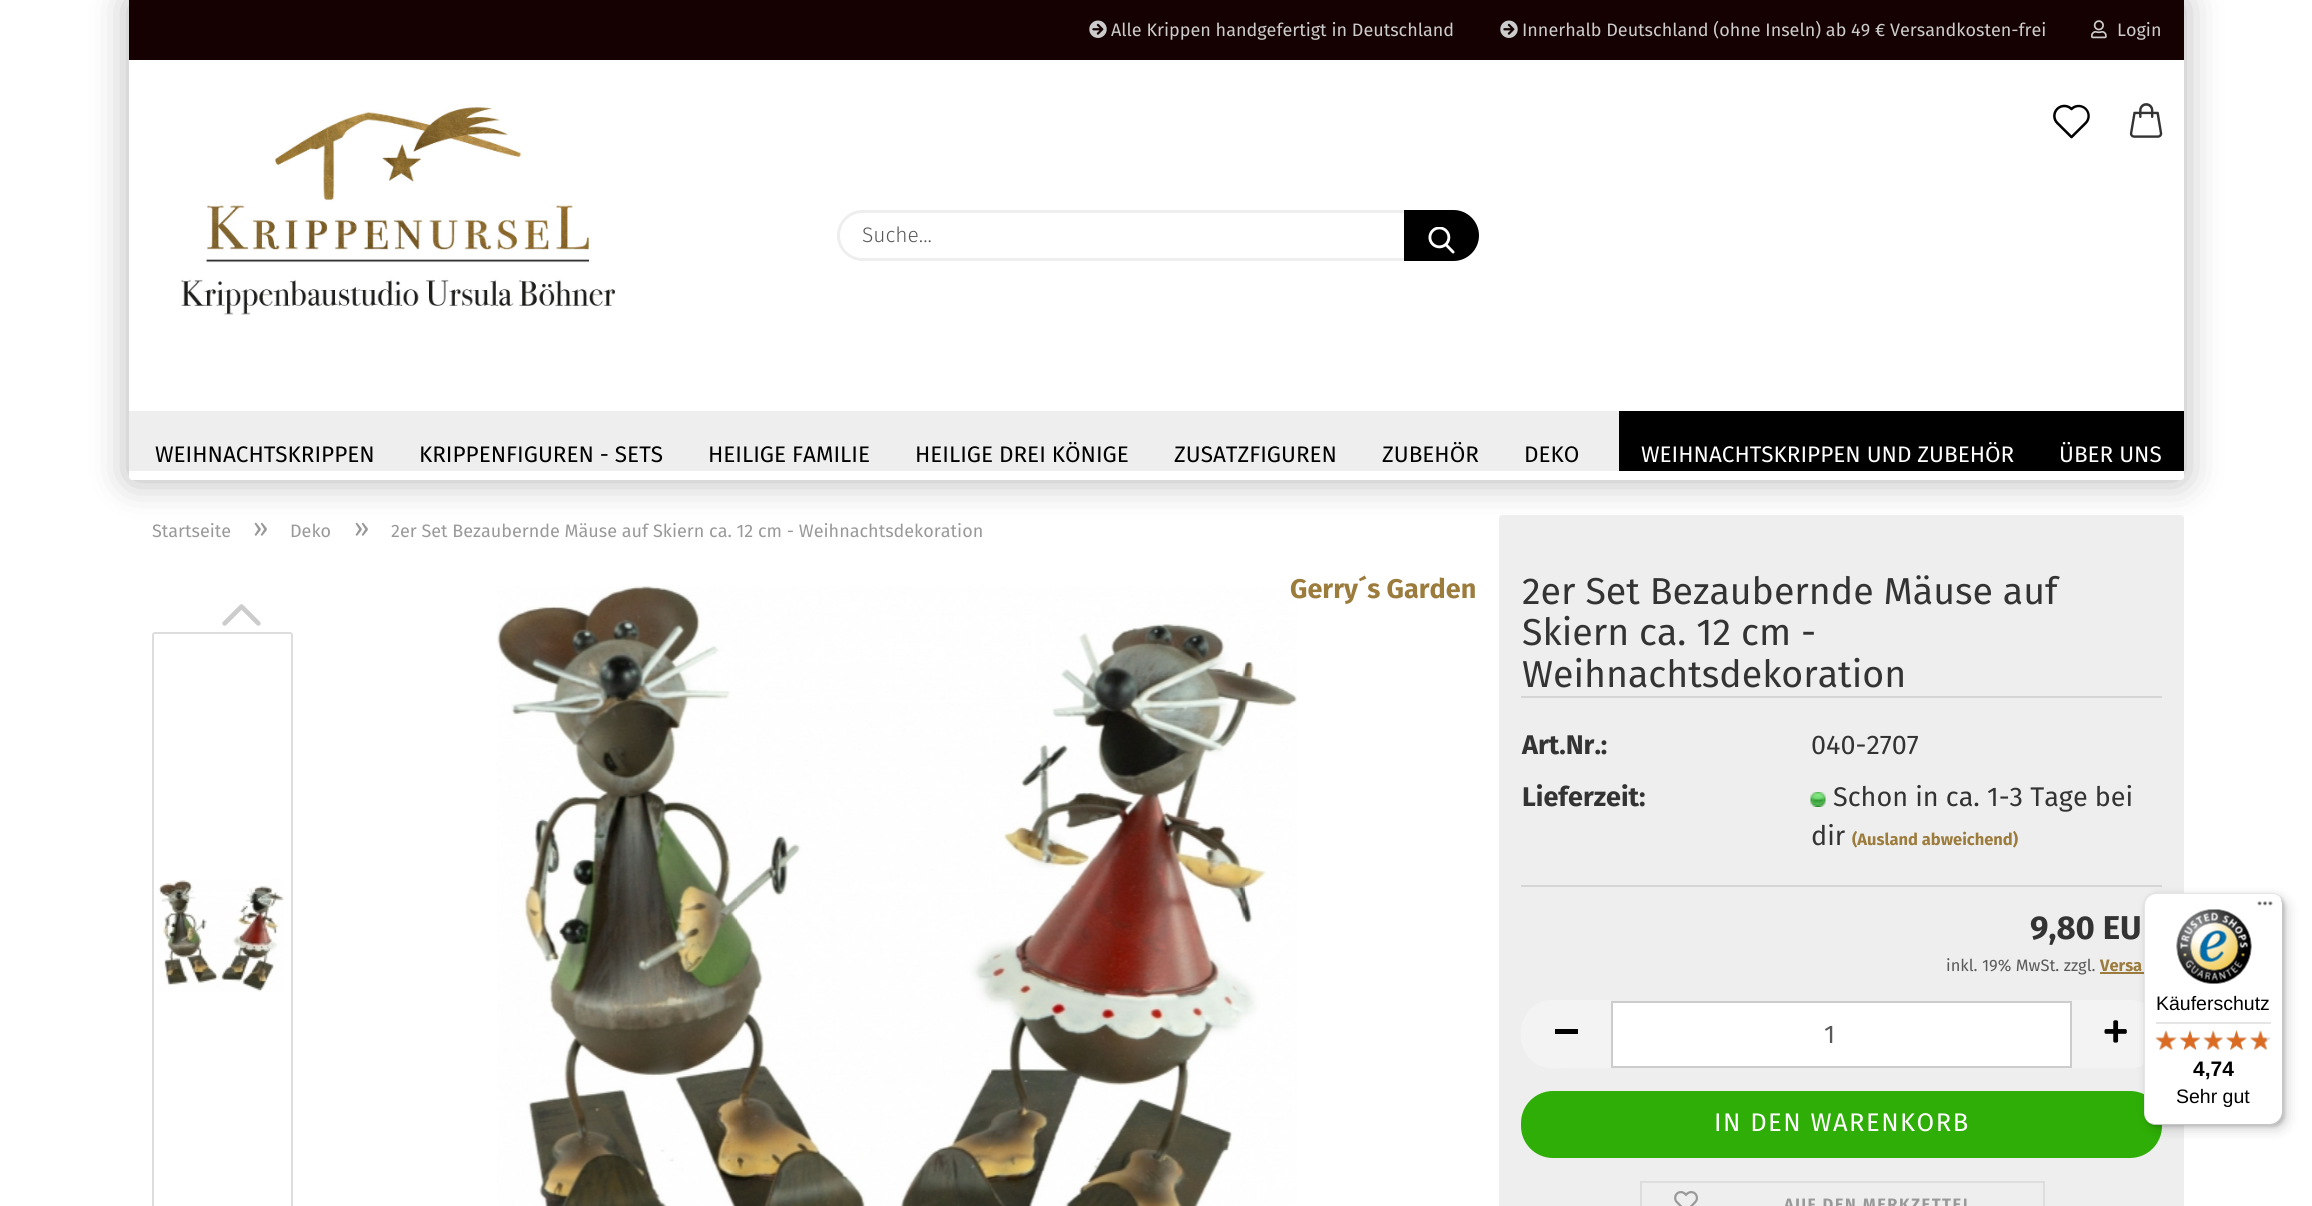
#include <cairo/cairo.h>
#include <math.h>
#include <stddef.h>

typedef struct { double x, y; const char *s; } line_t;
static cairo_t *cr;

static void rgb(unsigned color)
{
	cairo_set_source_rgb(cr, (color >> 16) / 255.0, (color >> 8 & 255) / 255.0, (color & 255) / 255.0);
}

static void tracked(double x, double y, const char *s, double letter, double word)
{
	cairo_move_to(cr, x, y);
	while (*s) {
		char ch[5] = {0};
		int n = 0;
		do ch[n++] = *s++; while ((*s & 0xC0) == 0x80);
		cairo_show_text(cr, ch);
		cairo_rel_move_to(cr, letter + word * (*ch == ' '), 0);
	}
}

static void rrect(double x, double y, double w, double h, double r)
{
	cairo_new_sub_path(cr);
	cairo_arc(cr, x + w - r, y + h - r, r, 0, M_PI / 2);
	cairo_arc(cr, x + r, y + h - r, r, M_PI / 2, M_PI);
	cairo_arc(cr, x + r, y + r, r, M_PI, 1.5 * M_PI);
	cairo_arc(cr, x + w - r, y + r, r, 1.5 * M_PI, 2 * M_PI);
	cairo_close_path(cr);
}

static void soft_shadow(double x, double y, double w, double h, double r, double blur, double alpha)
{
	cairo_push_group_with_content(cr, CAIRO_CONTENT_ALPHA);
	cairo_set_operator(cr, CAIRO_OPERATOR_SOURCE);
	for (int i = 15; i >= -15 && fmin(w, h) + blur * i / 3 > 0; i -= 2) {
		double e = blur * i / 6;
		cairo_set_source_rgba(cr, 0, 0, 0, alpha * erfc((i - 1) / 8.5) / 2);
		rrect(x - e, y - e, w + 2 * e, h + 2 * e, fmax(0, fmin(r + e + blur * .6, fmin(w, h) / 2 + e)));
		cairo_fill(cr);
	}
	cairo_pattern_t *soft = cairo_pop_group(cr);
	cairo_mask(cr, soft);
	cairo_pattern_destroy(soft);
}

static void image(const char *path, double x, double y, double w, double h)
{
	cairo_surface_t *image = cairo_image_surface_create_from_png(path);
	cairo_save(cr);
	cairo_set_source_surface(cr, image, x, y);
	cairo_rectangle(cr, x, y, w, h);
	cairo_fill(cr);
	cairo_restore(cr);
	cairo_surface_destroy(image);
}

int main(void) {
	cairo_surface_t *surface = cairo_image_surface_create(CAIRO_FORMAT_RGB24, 2312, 1206);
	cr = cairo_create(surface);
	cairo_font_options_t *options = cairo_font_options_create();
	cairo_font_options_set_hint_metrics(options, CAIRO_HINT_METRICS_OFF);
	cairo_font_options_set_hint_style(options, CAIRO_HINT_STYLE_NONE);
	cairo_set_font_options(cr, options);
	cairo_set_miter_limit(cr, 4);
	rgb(0xffffff);
	cairo_paint(cr);
	rgb(0x000000);
	soft_shadow(129, 0, 2055, 480, 3, 19, 0.3);
	rgb(0xffffff);
	cairo_new_path(cr);
	cairo_move_to(cr, 129, 0);
	cairo_line_to(cr, 2184, 0);
	cairo_line_to(cr, 2184, 477);
	cairo_curve_to(cr, 2184, 478.5, 2182.5, 480, 2181, 480);
	cairo_line_to(cr, 132, 480);
	cairo_curve_to(cr, 130.5, 480, 129, 478.5, 129, 477);
	cairo_close_path(cr);
	cairo_fill(cr);
	rgb(0x150101);
	cairo_rectangle(cr, 129, 0, 2055, 60);
	cairo_fill(cr);
	image("img/1.png", 1089, 20, 18, 18);
	image("img/1.png", 1500, 20, 18, 18);
	image("img/2.png", 2091, 20, 16, 19);
	image("img/3.png", 181, 107, 435, 208);
	rrect(838.5, 211.5, 636, 48, 24);
	rgb(0xeeeeee);
	cairo_set_line_width(cr, 3);
	cairo_stroke(cr);
	rgb(0x000000);
	cairo_new_path(cr);
	cairo_move_to(cr, 1404, 210);
	cairo_line_to(cr, 1453.5, 210);
	cairo_curve_to(cr, 1467.5, 210, 1479, 221.5, 1479, 235.5);
	cairo_curve_to(cr, 1479, 249.5, 1467.5, 261, 1453.5, 261);
	cairo_line_to(cr, 1404, 261);
	cairo_close_path(cr);
	cairo_fill(cr);
	image("img/4.png", 1428, 227, 27, 27);
	image("img/5.png", 2053, 104, 37, 35);
	image("img/6.png", 2129, 103, 34, 35);
	rgb(0xeeeeee);
	cairo_rectangle(cr, 129, 411, 1490, 60);
	cairo_fill(cr);
	rgb(0x000000);
	cairo_rectangle(cr, 1619, 411, 565, 60);
	cairo_fill(cr);
	image("img/7.png", 222, 604, 39, 22);
	rrect(153, 633, 139, 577, 2);
	rgb(0xdddddd);
	cairo_set_line_width(cr, 2);
	cairo_stroke(cr);
	image("img/8.png", 158, 879, 126, 113);
	image("img/9.png", 497, 586, 800, 620);
	rgb(0xeeeeee);
	rrect(1499, 515, 685, 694, 3);
	cairo_fill(cr);
	rgb(0xd5d5d5);
	cairo_rectangle(cr, 1521, 696, 641, 2);
	cairo_fill(cr);
	cairo_rectangle(cr, 1521, 885, 641, 2);
	cairo_fill(cr);
	image("img/10.png", 1810, 792, 16, 15);
	rgb(0x9c7c3d);
	cairo_rectangle(cr, 2100, 972, 44, 2);
	cairo_fill(cr);
	rgb(0xf3f3f3);
	cairo_new_path(cr);
	cairo_move_to(cr, 1553, 1001);
	cairo_line_to(cr, 1611, 1001);
	cairo_line_to(cr, 1611, 1068);
	cairo_line_to(cr, 1553, 1068);
	cairo_curve_to(cr, 1535.5, 1068, 1521, 1053.5, 1521, 1036);
	cairo_line_to(cr, 1521, 1033);
	cairo_curve_to(cr, 1521, 1015.5, 1535.5, 1001, 1553, 1001);
	cairo_close_path(cr);
	cairo_fill(cr);
	cairo_set_fill_rule(cr, CAIRO_FILL_RULE_EVEN_ODD);
	cairo_new_path(cr);
	cairo_move_to(cr, 1552, 1000);
	cairo_line_to(cr, 1611, 1000);
	cairo_line_to(cr, 1611, 1068);
	cairo_line_to(cr, 1572, 1068);
	cairo_curve_to(cr, 1562, 1068, 1550, 1070, 1540, 1066);
	cairo_curve_to(cr, 1509, 1052, 1517, 1000, 1552, 1000);
	cairo_close_path(cr);
	cairo_move_to(cr, 1552, 1002);
	cairo_line_to(cr, 1611, 1002);
	cairo_line_to(cr, 1611, 1066);
	cairo_line_to(cr, 1572, 1066);
	cairo_curve_to(cr, 1562, 1066, 1550, 1068, 1541, 1064);
	cairo_curve_to(cr, 1511, 1052, 1519, 1002, 1552, 1002);
	cairo_close_path(cr);
	cairo_fill(cr);
	rgb(0x000000);
	cairo_rectangle(cr, 1555, 1029, 23, 5);
	cairo_fill(cr);
	rgb(0xffffff);
	cairo_rectangle(cr, 1612, 1002, 459, 65);
	cairo_fill_preserve(cr);
	rgb(0xcccccc);
	cairo_stroke(cr);
	rgb(0xf3f3f3);
	cairo_new_path(cr);
	cairo_move_to(cr, 2072, 1001);
	cairo_line_to(cr, 2130, 1001);
	cairo_curve_to(cr, 2147.5, 1001, 2162, 1015.5, 2162, 1033);
	cairo_line_to(cr, 2162, 1036);
	cairo_curve_to(cr, 2162, 1053.5, 2147.5, 1068, 2130, 1068);
	cairo_line_to(cr, 2072, 1068);
	cairo_close_path(cr);
	cairo_fill(cr);
	cairo_new_path(cr);
	cairo_move_to(cr, 2072, 1000);
	cairo_line_to(cr, 2130, 1000);
	cairo_curve_to(cr, 2147, 1000, 2162, 1015, 2162, 1032);
	cairo_line_to(cr, 2162, 1036);
	cairo_curve_to(cr, 2162, 1054, 2147, 1068, 2130, 1068);
	cairo_line_to(cr, 2072, 1068);
	cairo_close_path(cr);
	cairo_move_to(cr, 2072, 1002);
	cairo_line_to(cr, 2130, 1002);
	cairo_curve_to(cr, 2147, 1002, 2160, 1015, 2160, 1032);
	cairo_line_to(cr, 2160, 1036);
	cairo_curve_to(cr, 2160, 1053, 2147, 1066, 2130, 1066);
	cairo_line_to(cr, 2072, 1066);
	cairo_close_path(cr);
	cairo_fill(cr);
	image("img/11.png", 2104, 1020, 23, 23);
	rgb(0x2eae06);
	rrect(1522, 1092, 639, 65, 31);
	cairo_fill_preserve(cr);
	cairo_stroke(cr);
	cairo_rectangle(cr, 1641, 1182, 403, 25);
	rgb(0xdddddd);
	cairo_stroke(cr);
	image("img/12.png", 1674, 1191, 24, 15);
	rgb(0x000000);
	soft_shadow(2148, 897, 140, 233, 12, 6, 0.15);
	soft_shadow(2145, 894, 140, 233, 12, 1.5, 0.15);
	rgb(0xffffff);
	rrect(2144, 893, 139, 232, 12);
	cairo_fill(cr);
	cairo_set_source_rgba(cr, 0, 0, 0, 0.1);
	cairo_set_fill_rule(cr, CAIRO_FILL_RULE_WINDING);
	cairo_new_path(cr);
	cairo_move_to(cr, 2157, 894);
	cairo_line_to(cr, 2272, 894);
	cairo_curve_to(cr, 2275, 894, 2277, 895, 2279, 896);
	cairo_curve_to(cr, 2277, 894, 2274, 893, 2271, 893);
	cairo_line_to(cr, 2156, 893);
	cairo_curve_to(cr, 2149, 893, 2144, 898, 2144, 905);
	cairo_line_to(cr, 2144, 1113);
	cairo_curve_to(cr, 2144, 1116, 2145, 1119, 2147, 1121);
	cairo_curve_to(cr, 2146, 1119, 2145, 1117, 2145, 1114);
	cairo_line_to(cr, 2145, 906);
	cairo_curve_to(cr, 2145, 899, 2150, 894, 2157, 894);
	cairo_close_path(cr);
	cairo_fill(cr);
	cairo_set_source_rgba(cr, 0, 0, 0, 0.2);
	cairo_new_path(cr);
	cairo_move_to(cr, 2150, 1123);
	cairo_curve_to(cr, 2151, 1124, 2154, 1125, 2156, 1125);
	cairo_line_to(cr, 2271, 1125);
	cairo_curve_to(cr, 2278, 1125, 2283, 1120, 2283, 1113);
	cairo_line_to(cr, 2283, 905);
	cairo_curve_to(cr, 2283, 903, 2282, 900, 2281, 899);
	cairo_line_to(cr, 2282, 903);
	cairo_line_to(cr, 2282, 1112);
	cairo_curve_to(cr, 2282, 1118, 2276, 1124, 2270, 1124);
	cairo_line_to(cr, 2154, 1124);
	cairo_close_path(cr);
	cairo_fill(cr);
	cairo_set_source_rgba(cr, 0.196, 0.196, 0.196, 0.2);
	cairo_new_path(cr);
	cairo_move_to(cr, 2148, 1122);
	cairo_curve_to(cr, 2150, 1124, 2153, 1125, 2156, 1125);
	cairo_line_to(cr, 2271, 1125);
	cairo_curve_to(cr, 2278, 1125, 2283, 1120, 2283, 1113);
	cairo_line_to(cr, 2283, 905);
	cairo_curve_to(cr, 2283, 902, 2282, 899, 2280, 897);
	cairo_curve_to(cr, 2281, 899, 2282, 901, 2282, 904);
	cairo_line_to(cr, 2282, 1112);
	cairo_curve_to(cr, 2282, 1119, 2277, 1124, 2270, 1124);
	cairo_line_to(cr, 2155, 1124);
	cairo_curve_to(cr, 2152, 1124, 2150, 1123, 2148, 1122);
	cairo_close_path(cr);
	cairo_fill(cr);
	cairo_set_source_rgba(cr, 1, 1, 1, 0.3);
	cairo_new_path(cr);
	cairo_move_to(cr, 2148, 1122);
	cairo_curve_to(cr, 2150, 1124, 2153, 1125, 2156, 1125);
	cairo_line_to(cr, 2271, 1125);
	cairo_curve_to(cr, 2278, 1125, 2283, 1120, 2283, 1113);
	cairo_line_to(cr, 2283, 905);
	cairo_curve_to(cr, 2283, 902, 2282, 899, 2280, 897);
	cairo_curve_to(cr, 2281, 899, 2282, 901, 2282, 904);
	cairo_line_to(cr, 2282, 1112);
	cairo_curve_to(cr, 2282, 1119, 2277, 1124, 2270, 1124);
	cairo_line_to(cr, 2155, 1124);
	cairo_curve_to(cr, 2152, 1124, 2150, 1123, 2148, 1122);
	cairo_close_path(cr);
	cairo_fill(cr);
	image("img/13.png", 2257, 901, 16, 5);
	image("img/14.png", 2176, 909, 76, 75);
	rgb(0xe5e5e5);
	cairo_rectangle(cr, 2156, 1022, 115, 2);
	cairo_fill(cr);
	image("img/20.png", 2156, 1031, 20, 19);
	image("img/15.png", 2155, 1030, 22, 20);
	image("img/21.png", 2180, 1030, 20, 20);
	image("img/16.png", 2180, 1030, 20, 20);
	image("img/22.png", 2203, 1030, 20, 20);
	image("img/17.png", 2203, 1030, 20, 20);
	image("img/23.png", 2226, 1030, 21, 20);
	image("img/18.png", 2226, 1030, 21, 20);
	image("img/24.png", 2250, 1031, 21, 19);
	image("img/19.png", 2250, 1030, 17, 20);
	cairo_select_font_face(cr, "Fira Sans", CAIRO_FONT_SLANT_NORMAL, CAIRO_FONT_WEIGHT_NORMAL);
	cairo_set_font_size(cr, 18);
	rgb(0xcccccc);
	{
		static const line_t items[] = {
			{1111, 36, "Alle Krippen handgefertigt in Deutschland"},
			{1522, 36, "Innerhalb Deutschland (ohne Inseln) ab 49 € Versandkosten-frei"},
			{2117, 36, "Login"},
		};
		for (size_t i = 0; i < sizeof items / sizeof *items; i++) {
			cairo_move_to(cr, items[i].x, items[i].y);
			cairo_show_text(cr, items[i].s);
		}
	}
	cairo_select_font_face(cr, "Fira Sans Light", CAIRO_FONT_SLANT_NORMAL, CAIRO_FONT_WEIGHT_NORMAL);
	cairo_set_font_size(cr, 21);
	rgb(0x595959);
	cairo_move_to(cr, 862, 242);
	cairo_show_text(cr, "Suche...");
	cairo_select_font_face(cr, "Fira Sans", CAIRO_FONT_SLANT_NORMAL, CAIRO_FONT_WEIGHT_NORMAL);
	cairo_set_font_size(cr, 22.5);
	rgb(0x000000);
	{
		static const line_t items[] = {
			{155, 462, "WEIHNACHTSKRIPPEN"},
			{419, 462, "KRIPPENFIGUREN - SETS"},
			{708, 462, "HEILIGE FAMILIE"},
			{915, 462, "HEILIGE DREI KÖNIGE"},
			{1174, 462, "ZUSATZFIGUREN"},
			{1382, 462, "ZUBEHÖR"},
			{1524, 462, "DEKO"},
		};
		for (size_t i = 0; i < sizeof items / sizeof *items; i++) {
			cairo_move_to(cr, items[i].x, items[i].y);
			cairo_show_text(cr, items[i].s);
		}
	}
	rgb(0xffffff);
	cairo_move_to(cr, 1641, 462);
	cairo_show_text(cr, "WEIHNACHTSKRIPPEN UND ZUBEHÖR");
	cairo_move_to(cr, 2059, 462);
	cairo_show_text(cr, "ÜBER UNS");
	cairo_set_font_size(cr, 18);
	rgb(0x999999);
	cairo_move_to(cr, 152, 537);
	cairo_show_text(cr, "Startseite");
	cairo_set_font_size(cr, 27);
	cairo_move_to(cr, 253, 537);
	cairo_show_text(cr, "»");
	cairo_set_font_size(cr, 18);
	cairo_move_to(cr, 290, 537);
	cairo_show_text(cr, "Deko");
	cairo_set_font_size(cr, 27);
	cairo_move_to(cr, 354, 537);
	cairo_show_text(cr, "»");
	cairo_set_font_size(cr, 18);
	cairo_move_to(cr, 391, 537);
	cairo_show_text(cr, "2er Set Bezaubernde Mäuse auf Skiern ca. 12 cm - Weihnachtsdekoration");
	cairo_select_font_face(cr, "Fira Sans", CAIRO_FONT_SLANT_NORMAL, CAIRO_FONT_WEIGHT_BOLD);
	cairo_set_font_size(cr, 27);
	rgb(0x9c7c3d);
	cairo_move_to(cr, 1290, 598);
	cairo_show_text(cr, "Gerry´s Garden");
	cairo_select_font_face(cr, "Fira Sans", CAIRO_FONT_SLANT_NORMAL, CAIRO_FONT_WEIGHT_NORMAL);
	cairo_set_font_size(cr, 37.5);
	rgb(0x333333);
	{
		static const line_t items[] = {
			{1522, 604, "2er Set Bezaubernde Mäuse auf"},
			{1522, 645, "Skiern ca. 12 cm -"},
			{1522, 687, "Weihnachtsdekoration"},
		};
		for (size_t i = 0; i < sizeof items / sizeof *items; i++) {
			cairo_move_to(cr, items[i].x, items[i].y);
			cairo_show_text(cr, items[i].s);
		}
	}
	cairo_select_font_face(cr, "Fira Sans", CAIRO_FONT_SLANT_NORMAL, CAIRO_FONT_WEIGHT_BOLD);
	cairo_set_font_size(cr, 27);
	cairo_move_to(cr, 1522, 754);
	cairo_show_text(cr, "Art.Nr.:");
	cairo_select_font_face(cr, "Fira Sans", CAIRO_FONT_SLANT_NORMAL, CAIRO_FONT_WEIGHT_NORMAL);
	cairo_move_to(cr, 1811, 754);
	cairo_show_text(cr, "040-2707");
	cairo_select_font_face(cr, "Fira Sans", CAIRO_FONT_SLANT_NORMAL, CAIRO_FONT_WEIGHT_BOLD);
	cairo_move_to(cr, 1522, 806);
	cairo_show_text(cr, "Lieferzeit:");
	cairo_select_font_face(cr, "Fira Sans", CAIRO_FONT_SLANT_NORMAL, CAIRO_FONT_WEIGHT_NORMAL);
	cairo_move_to(cr, 1833, 806);
	cairo_show_text(cr, "Schon in ca. 1-3 Tage bei");
	cairo_move_to(cr, 1811, 845);
	cairo_show_text(cr, "dir");
	cairo_select_font_face(cr, "Fira Sans", CAIRO_FONT_SLANT_NORMAL, CAIRO_FONT_WEIGHT_BOLD);
	cairo_set_font_size(cr, 16.5);
	rgb(0x9c7c3d);
	cairo_move_to(cr, 1852, 845);
	cairo_show_text(cr, "(Ausland abweichend)");
	cairo_set_font_size(cr, 33);
	rgb(0x333333);
	cairo_move_to(cr, 2030, 939);
	cairo_show_text(cr, "9,80 EU");
	cairo_select_font_face(cr, "Fira Sans", CAIRO_FONT_SLANT_NORMAL, CAIRO_FONT_WEIGHT_NORMAL);
	cairo_set_font_size(cr, 16.5);
	rgb(0x595959);
	cairo_move_to(cr, 1946, 971);
	cairo_show_text(cr, "inkl. 19% MwSt. zzgl.");
	cairo_select_font_face(cr, "Fira Sans", CAIRO_FONT_SLANT_NORMAL, CAIRO_FONT_WEIGHT_BOLD);
	rgb(0x9c7c3d);
	cairo_move_to(cr, 2100, 971);
	cairo_show_text(cr, "Versa");
	cairo_select_font_face(cr, "Fira Sans", CAIRO_FONT_SLANT_NORMAL, CAIRO_FONT_WEIGHT_NORMAL);
	cairo_set_font_size(cr, 25.5);
	rgb(0x595959);
	cairo_move_to(cr, 1824, 1043);
	cairo_show_text(cr, "1");
	rgb(0xffffff);
	tracked(1714, 1131, "IN DEN WARENKORB", 1.5, 0);
	cairo_select_font_face(cr, "Fira Sans", CAIRO_FONT_SLANT_NORMAL, CAIRO_FONT_WEIGHT_BOLD);
	cairo_set_font_size(cr, 16.5);
	rgb(0x999999);
	tracked(1784, 1210, "AUF DEN MERKZETTEL", 1.5, 0);
	cairo_select_font_face(cr, "Liberation Sans", CAIRO_FONT_SLANT_NORMAL, CAIRO_FONT_WEIGHT_NORMAL);
	cairo_set_font_size(cr, 19.5);
	rgb(0x000000);
	cairo_move_to(cr, 2156, 1010);
	cairo_show_text(cr, "Käuferschutz");
	cairo_select_font_face(cr, "Liberation Sans", CAIRO_FONT_SLANT_NORMAL, CAIRO_FONT_WEIGHT_BOLD);
	cairo_set_font_size(cr, 21);
	cairo_move_to(cr, 2193, 1076);
	cairo_show_text(cr, "4,74");
	cairo_select_font_face(cr, "Liberation Sans", CAIRO_FONT_SLANT_NORMAL, CAIRO_FONT_WEIGHT_NORMAL);
	cairo_set_font_size(cr, 19.5);
	cairo_move_to(cr, 2176, 1103);
	cairo_show_text(cr, "Sehr gut");
	cairo_surface_write_to_png(surface, "page.png");
	cairo_font_options_destroy(options);
	cairo_destroy(cr);
	cairo_surface_destroy(surface);
	return 0;
}
